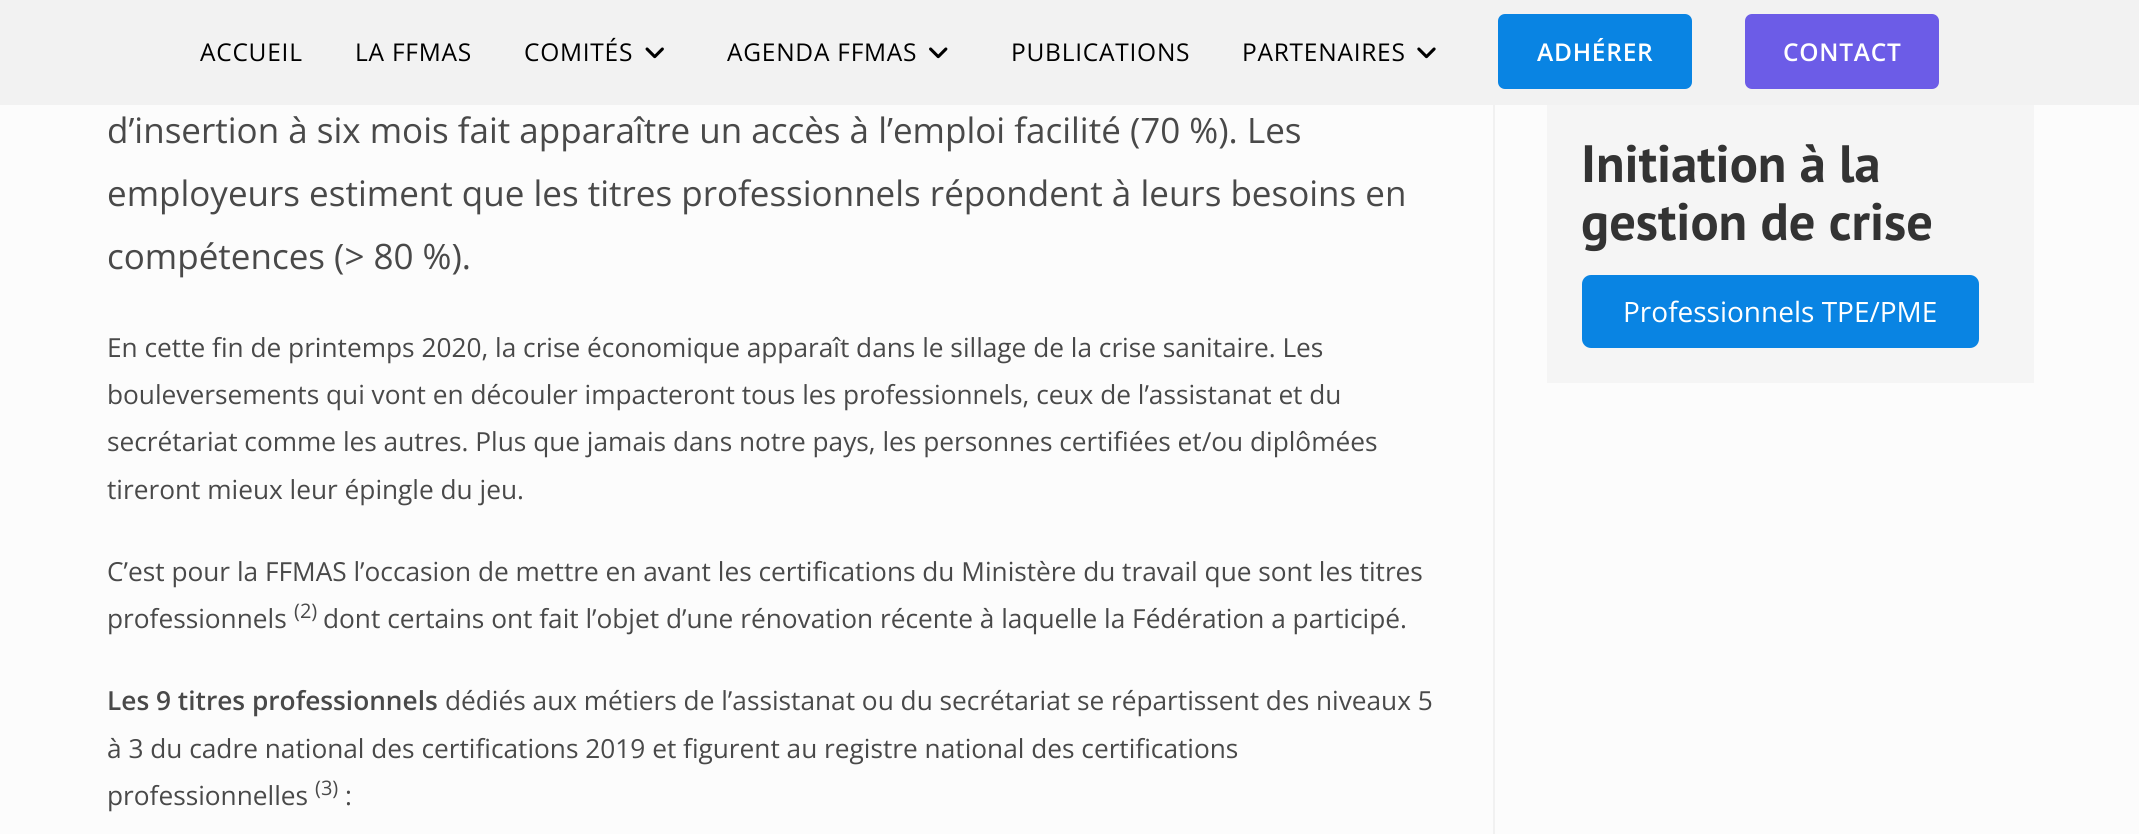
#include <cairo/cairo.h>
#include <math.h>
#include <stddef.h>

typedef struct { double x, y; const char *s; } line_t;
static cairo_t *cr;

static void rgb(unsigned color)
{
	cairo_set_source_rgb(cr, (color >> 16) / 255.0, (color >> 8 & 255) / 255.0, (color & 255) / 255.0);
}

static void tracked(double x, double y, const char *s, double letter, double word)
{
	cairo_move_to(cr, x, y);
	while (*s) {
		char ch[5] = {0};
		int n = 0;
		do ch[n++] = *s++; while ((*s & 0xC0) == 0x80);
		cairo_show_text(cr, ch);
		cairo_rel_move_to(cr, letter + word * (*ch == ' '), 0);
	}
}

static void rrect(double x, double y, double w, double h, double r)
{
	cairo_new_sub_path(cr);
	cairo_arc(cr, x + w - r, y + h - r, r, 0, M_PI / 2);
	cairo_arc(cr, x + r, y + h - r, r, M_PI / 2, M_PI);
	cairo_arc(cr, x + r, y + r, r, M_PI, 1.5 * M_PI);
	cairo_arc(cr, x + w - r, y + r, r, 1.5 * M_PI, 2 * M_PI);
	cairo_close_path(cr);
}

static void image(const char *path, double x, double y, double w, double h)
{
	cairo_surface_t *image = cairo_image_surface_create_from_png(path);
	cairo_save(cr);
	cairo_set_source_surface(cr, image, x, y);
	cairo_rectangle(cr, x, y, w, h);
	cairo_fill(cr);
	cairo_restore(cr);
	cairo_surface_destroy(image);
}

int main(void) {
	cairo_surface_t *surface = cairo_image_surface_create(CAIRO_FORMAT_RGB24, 2139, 834);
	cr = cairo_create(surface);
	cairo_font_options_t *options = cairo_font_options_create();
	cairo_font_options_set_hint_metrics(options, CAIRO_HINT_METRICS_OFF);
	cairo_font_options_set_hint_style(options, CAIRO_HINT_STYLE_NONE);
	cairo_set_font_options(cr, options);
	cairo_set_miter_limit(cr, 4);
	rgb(0xfcfcfc);
	cairo_paint(cr);
	rgb(0xf2f2f2);
	cairo_rectangle(cr, 0, 0, 2139, 105);
	cairo_fill(cr);
	image("img/1.png", 645, 47, 19, 12);
	image("img/2.png", 929, 47, 19, 12);
	image("img/3.png", 1417, 47, 19, 12);
	rgb(0x0984e3);
	rrect(1498, 14, 194, 75, 7);
	cairo_fill(cr);
	rgb(0x6c5ce7);
	rrect(1745, 14, 194, 75, 7);
	cairo_fill(cr);
	rgb(0xf1f1f1);
	cairo_rectangle(cr, 1493, 105, 2, 729);
	cairo_fill(cr);
	rgb(0xf5f5f5);
	cairo_rectangle(cr, 1547, 105, 487, 278);
	cairo_fill(cr);
	rgb(0x0984e3);
	rrect(1582, 275, 397, 73, 9);
	cairo_fill(cr);
	cairo_select_font_face(cr, "Open Sans", CAIRO_FONT_SLANT_NORMAL, CAIRO_FONT_WEIGHT_NORMAL);
	cairo_set_font_size(cr, 24.5);
	rgb(0x000000);
	{
		static const line_t items[] = {
			{200, 61, "ACCUEIL"},
			{355, 61, "LA FFMAS"},
			{524, 61, "COMITÉS"},
			{727, 61, "AGENDA FFMAS"},
			{1011, 61, "PUBLICATIONS"},
			{1242, 61, "PARTENAIRES"},
		};
		for (size_t i = 0; i < sizeof items / sizeof *items; i++) {
			tracked(items[i].x, items[i].y, items[i].s, 0.75, 0);
		}
	}
	cairo_select_font_face(cr, "Open Sans SemiBold", CAIRO_FONT_SLANT_NORMAL, CAIRO_FONT_WEIGHT_NORMAL);
	rgb(0xffffff);
	tracked(1537, 61, "ADHÉRER", 0.75, 0);
	tracked(1783, 61, "CONTACT", 0.75, 0);
	cairo_select_font_face(cr, "Open Sans", CAIRO_FONT_SLANT_NORMAL, CAIRO_FONT_WEIGHT_NORMAL);
	cairo_set_font_size(cr, 35);
	rgb(0x494949);
	{
		static const line_t items[] = {
			{107, 143, "d’insertion à six mois fait apparaître un accès à l’emploi facilité (70 %). Les"},
			{107, 206, "employeurs estiment que les titres professionnels répondent à leurs besoins en"},
			{107, 269, "compétences (> 80 %)."},
		};
		for (size_t i = 0; i < sizeof items / sizeof *items; i++) {
			cairo_move_to(cr, items[i].x, items[i].y);
			cairo_show_text(cr, items[i].s);
		}
	}
	cairo_set_font_size(cr, 26.25);
	{
		static const line_t items[] = {
			{107, 357, "En cette fin de printemps 2020, la crise économique apparaît dans le sillage de la crise sanitaire. Les"},
			{107, 404, "bouleversements qui vont en découler impacteront tous les professionnels, ceux de l’assistanat et du"},
			{107, 451, "secrétariat comme les autres. Plus que jamais dans notre pays, les personnes certifiées et/ou diplômées"},
			{107, 499, "tireront mieux leur épingle du jeu."},
			{107, 581, "C’est pour la FFMAS l’occasion de mettre en avant les certifications du Ministère du travail que sont les titres"},
			{107, 628, "professionnels"},
		};
		for (size_t i = 0; i < sizeof items / sizeof *items; i++) {
			cairo_move_to(cr, items[i].x, items[i].y);
			cairo_show_text(cr, items[i].s);
		}
	}
	cairo_set_font_size(cr, 20);
	cairo_move_to(cr, 294, 618);
	cairo_show_text(cr, "(2)");
	cairo_set_font_size(cr, 26.25);
	cairo_move_to(cr, 323, 628);
	cairo_show_text(cr, "dont certains ont fait l’objet d’une rénovation récente à laquelle la Fédération a participé.");
	cairo_select_font_face(cr, "Open Sans SemiBold", CAIRO_FONT_SLANT_NORMAL, CAIRO_FONT_WEIGHT_NORMAL);
	cairo_move_to(cr, 107, 710);
	cairo_show_text(cr, "Les 9 titres professionnels");
	cairo_select_font_face(cr, "Open Sans", CAIRO_FONT_SLANT_NORMAL, CAIRO_FONT_WEIGHT_NORMAL);
	{
		static const line_t items[] = {
			{445, 710, "dédiés aux métiers de l’assistanat ou du secrétariat se répartissent des niveaux 5"},
			{107, 758, "à 3 du cadre national des certifications 2019 et figurent au registre national des certifications"},
			{107, 805, "professionnelles"},
		};
		for (size_t i = 0; i < sizeof items / sizeof *items; i++) {
			cairo_move_to(cr, items[i].x, items[i].y);
			cairo_show_text(cr, items[i].s);
		}
	}
	cairo_set_font_size(cr, 20);
	cairo_move_to(cr, 315, 795);
	cairo_show_text(cr, "(3)");
	cairo_set_font_size(cr, 26.25);
	cairo_move_to(cr, 345, 805);
	cairo_show_text(cr, ":");
	cairo_select_font_face(cr, "PT Sans", CAIRO_FONT_SLANT_NORMAL, CAIRO_FONT_WEIGHT_BOLD);
	cairo_set_font_size(cr, 52.5);
	rgb(0x333333);
	cairo_move_to(cr, 1581, 182);
	cairo_show_text(cr, "Initiation à la");
	cairo_move_to(cr, 1581, 240);
	cairo_show_text(cr, "gestion de crise");
	cairo_select_font_face(cr, "Open Sans", CAIRO_FONT_SLANT_NORMAL, CAIRO_FONT_WEIGHT_NORMAL);
	cairo_set_font_size(cr, 28);
	rgb(0xffffff);
	cairo_move_to(cr, 1623, 322);
	cairo_show_text(cr, "Professionnels TPE/PME");
	cairo_surface_write_to_png(surface, "page.png");
	cairo_font_options_destroy(options);
	cairo_destroy(cr);
	cairo_surface_destroy(surface);
	return 0;
}
